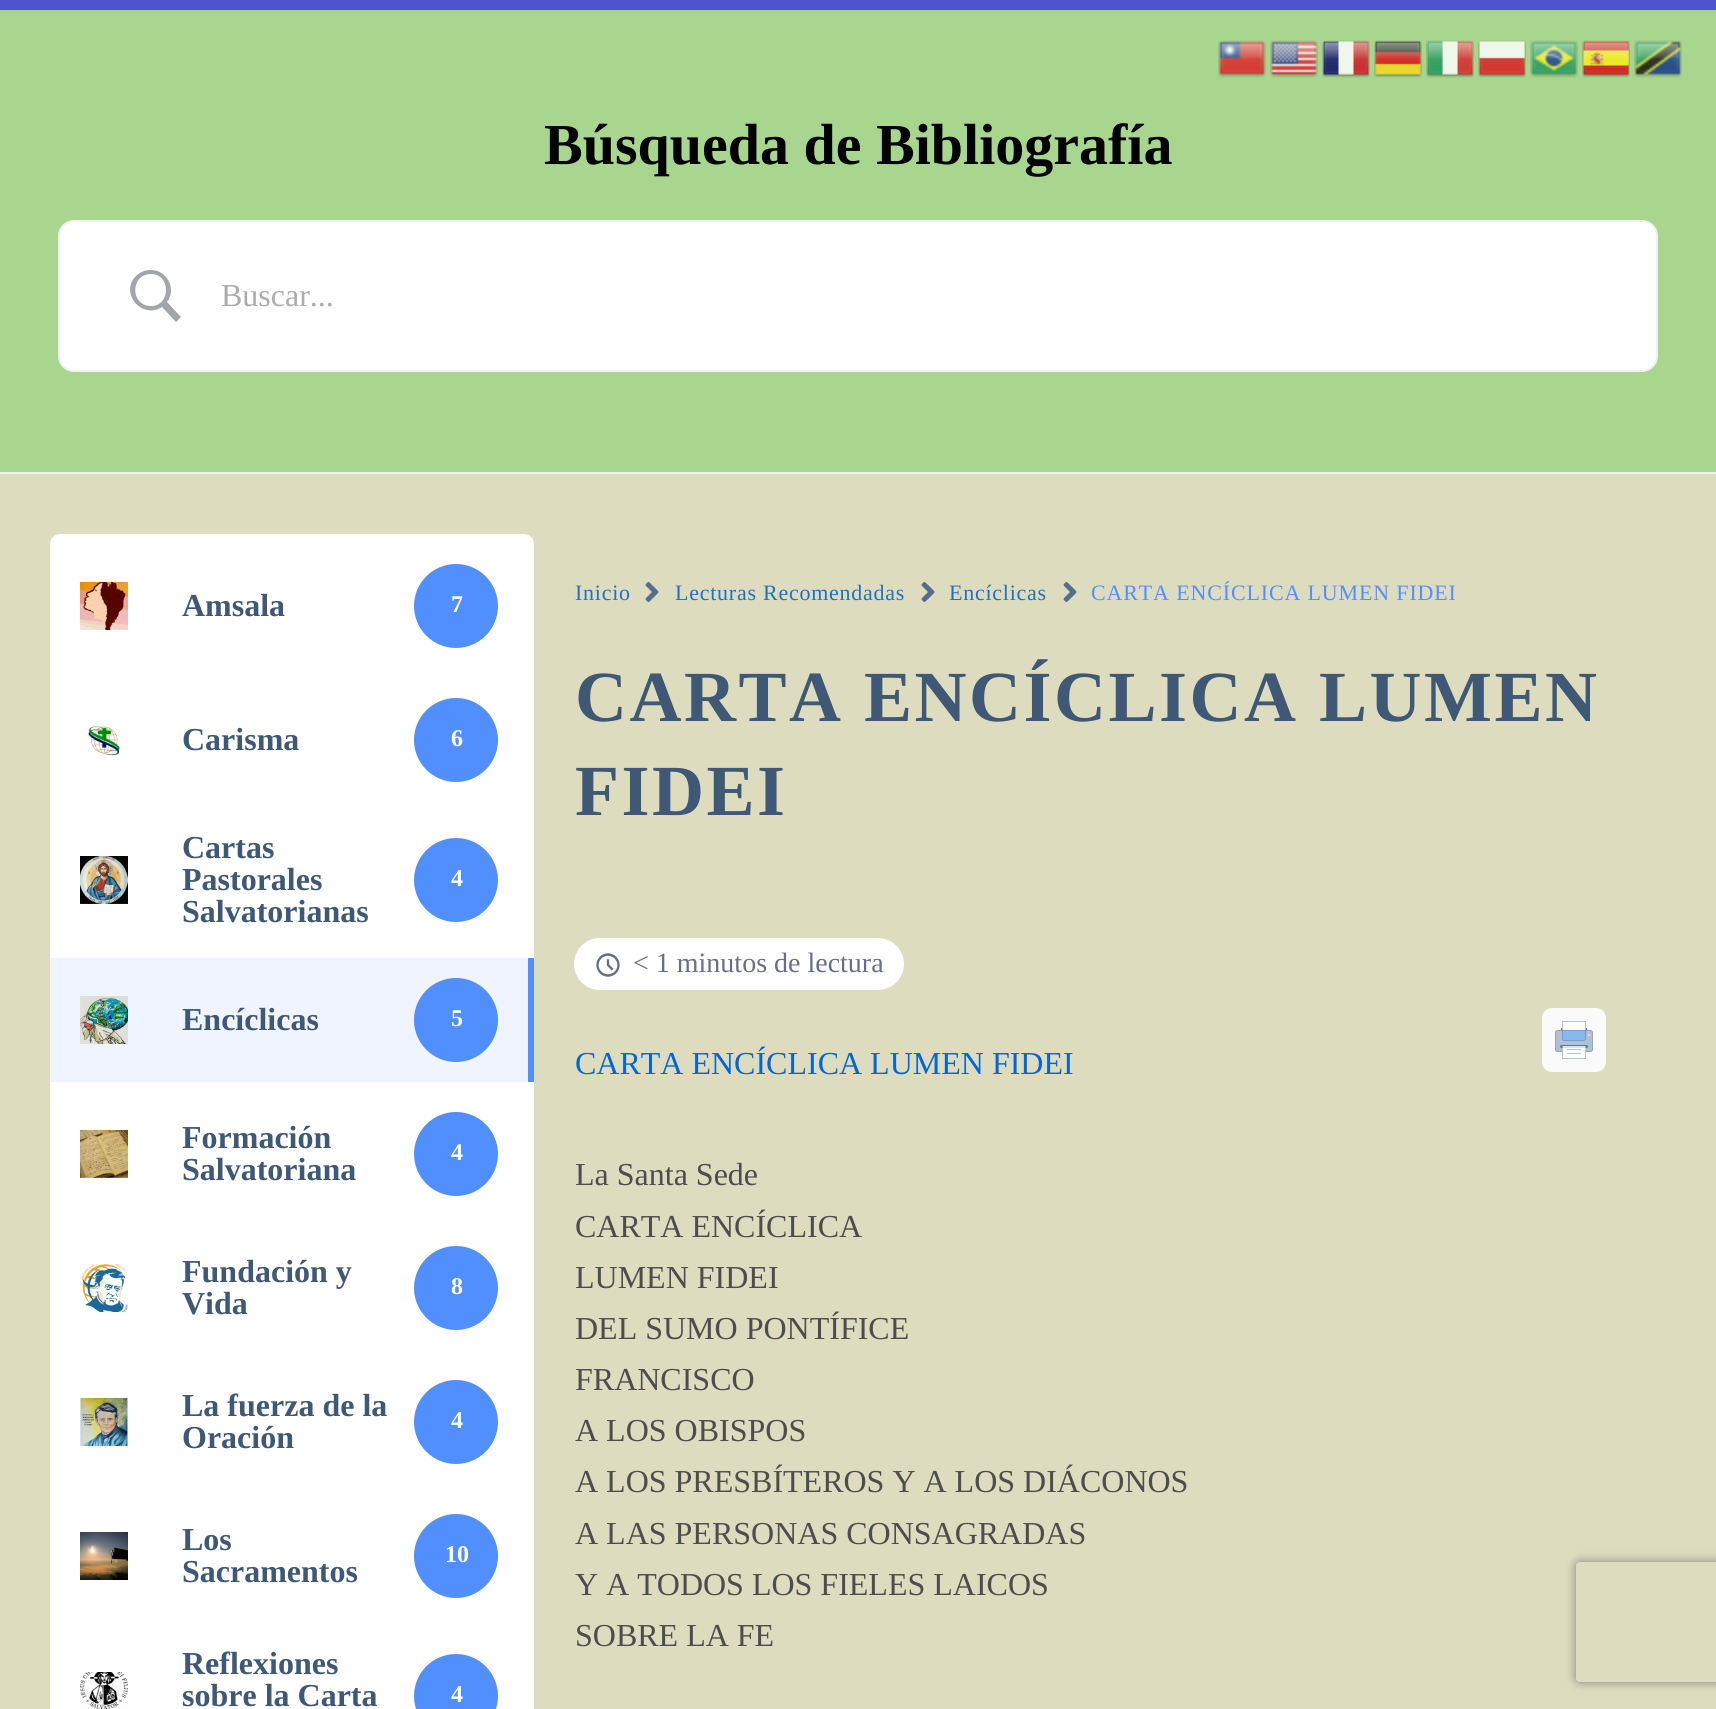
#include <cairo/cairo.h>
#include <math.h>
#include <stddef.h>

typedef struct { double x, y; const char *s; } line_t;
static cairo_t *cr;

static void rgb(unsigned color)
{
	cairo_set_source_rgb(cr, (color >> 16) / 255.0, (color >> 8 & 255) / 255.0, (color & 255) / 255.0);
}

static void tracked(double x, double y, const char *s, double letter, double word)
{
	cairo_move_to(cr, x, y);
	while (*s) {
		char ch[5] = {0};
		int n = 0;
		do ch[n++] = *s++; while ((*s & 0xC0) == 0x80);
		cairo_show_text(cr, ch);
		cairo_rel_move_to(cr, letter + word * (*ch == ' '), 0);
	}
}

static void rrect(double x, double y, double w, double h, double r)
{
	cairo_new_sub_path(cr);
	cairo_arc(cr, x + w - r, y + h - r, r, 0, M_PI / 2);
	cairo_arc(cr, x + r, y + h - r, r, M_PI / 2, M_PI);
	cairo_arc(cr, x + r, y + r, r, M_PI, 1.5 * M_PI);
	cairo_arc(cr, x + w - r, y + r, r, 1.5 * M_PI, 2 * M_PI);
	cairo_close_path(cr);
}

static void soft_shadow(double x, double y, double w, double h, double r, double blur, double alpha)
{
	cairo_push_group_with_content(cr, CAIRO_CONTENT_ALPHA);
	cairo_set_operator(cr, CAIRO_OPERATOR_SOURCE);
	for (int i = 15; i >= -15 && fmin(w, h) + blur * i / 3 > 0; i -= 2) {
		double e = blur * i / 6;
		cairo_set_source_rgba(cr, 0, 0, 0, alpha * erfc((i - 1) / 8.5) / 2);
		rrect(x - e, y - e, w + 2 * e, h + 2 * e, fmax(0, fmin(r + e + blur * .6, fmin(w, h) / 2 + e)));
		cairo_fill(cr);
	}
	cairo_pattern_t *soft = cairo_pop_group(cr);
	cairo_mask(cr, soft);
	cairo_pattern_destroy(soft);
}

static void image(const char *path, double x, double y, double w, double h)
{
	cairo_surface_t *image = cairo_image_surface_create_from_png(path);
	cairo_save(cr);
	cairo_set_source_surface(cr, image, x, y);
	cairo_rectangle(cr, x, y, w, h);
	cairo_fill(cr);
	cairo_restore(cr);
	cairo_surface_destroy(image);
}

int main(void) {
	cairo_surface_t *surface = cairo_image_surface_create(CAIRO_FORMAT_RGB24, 1716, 1709);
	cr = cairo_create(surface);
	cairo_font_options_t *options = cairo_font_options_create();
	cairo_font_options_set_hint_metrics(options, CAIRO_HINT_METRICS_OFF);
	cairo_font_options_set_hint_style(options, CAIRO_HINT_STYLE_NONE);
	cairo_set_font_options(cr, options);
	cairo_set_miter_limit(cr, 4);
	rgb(0xa8d68f);
	cairo_paint(cr);
	image("img/1.png", 1218, 40, 48, 38);
	image("img/2.png", 1270, 40, 48, 38);
	image("img/3.png", 1322, 40, 48, 38);
	image("img/4.png", 1374, 40, 48, 38);
	image("img/5.png", 1426, 40, 48, 38);
	image("img/6.png", 1478, 40, 48, 38);
	image("img/7.png", 1530, 40, 48, 38);
	image("img/8.png", 1582, 40, 48, 38);
	image("img/9.png", 1634, 40, 48, 38);
	rgb(0x000000);
	soft_shadow(0, -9, 1716, 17, 0, 3, 0.1);
	rgb(0x4f54d1);
	cairo_rectangle(cr, 0, 0, 1716, 10);
	cairo_fill(cr);
	rgb(0xf1f1f1);
	cairo_rectangle(cr, 0, 472, 1716, 2);
	cairo_fill(cr);
	rgb(0xffffff);
	rrect(59, 221, 1598, 150, 15);
	cairo_fill_preserve(cr);
	rgb(0xf1f1f1);
	cairo_stroke(cr);
	rgb(0xa2a5aa);
	cairo_new_path(cr);
	cairo_move_to(cr, 151, 270);
	cairo_curve_to(cr, 145, 270, 140, 272, 136, 276);
	cairo_curve_to(cr, 119, 293, 142, 320, 162, 307);
	cairo_line_to(cr, 176, 322);
	cairo_line_to(cr, 181, 317);
	cairo_line_to(cr, 167, 302);
	cairo_curve_to(cr, 177, 289, 167, 270, 151, 270);
	cairo_close_path(cr);
	cairo_move_to(cr, 151, 274);
	cairo_curve_to(cr, 171, 274, 171, 306, 151, 306);
	cairo_curve_to(cr, 130, 306, 130, 274, 151, 274);
	cairo_close_path(cr);
	cairo_fill(cr);
	rgb(0xdddcbe);
	cairo_rectangle(cr, 0, 474, 1716, 1235);
	cairo_fill(cr);
	rgb(0xffffff);
	rrect(50, 534, 484, 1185, 10);
	cairo_fill(cr);
	image("img/10.png", 80, 582, 48, 48);
	rgb(0x528ffe);
	cairo_arc(cr, 456, 606, 42, 0, 2 * M_PI);
	cairo_fill(cr);
	image("img/11.png", 88, 726, 32, 30);
	cairo_arc(cr, 456, 740, 42, 0, 2 * M_PI);
	cairo_fill(cr);
	image("img/12.png", 80, 856, 48, 48);
	cairo_arc(cr, 456, 880, 42, 0, 2 * M_PI);
	cairo_fill(cr);
	rgb(0xeff4ff);
	cairo_rectangle(cr, 50, 958, 478, 124);
	cairo_fill(cr);
	rgb(0x528fff);
	cairo_rectangle(cr, 528, 958, 6, 124);
	cairo_fill(cr);
	image("img/13.png", 80, 996, 48, 48);
	rgb(0x528ffe);
	cairo_arc(cr, 456, 1020, 42, 0, 2 * M_PI);
	cairo_fill(cr);
	image("img/14.png", 80, 1130, 48, 48);
	cairo_arc(cr, 456, 1154, 42, 0, 2 * M_PI);
	cairo_fill(cr);
	image("img/15.png", 80, 1264, 48, 48);
	cairo_arc(cr, 456, 1288, 42, 0, 2 * M_PI);
	cairo_fill(cr);
	image("img/16.png", 80, 1398, 48, 48);
	cairo_arc(cr, 456, 1422, 42, 0, 2 * M_PI);
	cairo_fill(cr);
	image("img/17.png", 80, 1532, 48, 48);
	cairo_arc(cr, 456, 1556, 42, 0, 2 * M_PI);
	cairo_fill(cr);
	image("img/18.png", 80, 1672, 48, 37);
	cairo_arc(cr, 456, 1696, 42, 0, 2 * M_PI);
	cairo_fill(cr);
	image("img/19.png", 645, 582, 14, 20);
	image("img/19.png", 921, 582, 14, 20);
	image("img/19.png", 1063, 582, 14, 20);
	rgb(0xffffff);
	rrect(574, 938, 330, 52, 26);
	cairo_fill(cr);
	image("img/20.png", 596, 953, 24, 24);
	rgb(0xfafafa);
	rrect(1542, 1008, 64, 64, 10);
	cairo_fill(cr);
	image("img/21.png", 1555, 1021, 38, 38);
	cairo_save(cr);
	cairo_set_fill_rule(cr, CAIRO_FILL_RULE_EVEN_ODD);
	cairo_new_path(cr);
	cairo_move_to(cr, 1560, 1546);
	cairo_line_to(cr, 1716, 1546);
	cairo_line_to(cr, 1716, 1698);
	cairo_line_to(cr, 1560, 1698);
	cairo_close_path(cr);
	cairo_move_to(cr, 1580, 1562);
	cairo_line_to(cr, 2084, 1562);
	cairo_curve_to(cr, 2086, 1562, 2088, 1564, 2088, 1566);
	cairo_line_to(cr, 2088, 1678);
	cairo_curve_to(cr, 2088, 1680, 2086, 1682, 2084, 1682);
	cairo_line_to(cr, 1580, 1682);
	cairo_curve_to(cr, 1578, 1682, 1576, 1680, 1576, 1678);
	cairo_line_to(cr, 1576, 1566);
	cairo_curve_to(cr, 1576, 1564, 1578, 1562, 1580, 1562);
	cairo_close_path(cr);
	cairo_clip(cr);
	rgb(0x808080);
	soft_shadow(1576, 1562, 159, 120, 4, 5, 1);
	cairo_restore(cr);
	cairo_select_font_face(cr, "Liberation Serif", CAIRO_FONT_SLANT_NORMAL, CAIRO_FONT_WEIGHT_BOLD);
	cairo_set_font_size(cr, 58);
	rgb(0x000000);
	cairo_move_to(cr, 544, 164);
	cairo_show_text(cr, "Búsqueda de Bibliografía");
	cairo_select_font_face(cr, "Liberation Serif", CAIRO_FONT_SLANT_NORMAL, CAIRO_FONT_WEIGHT_NORMAL);
	cairo_set_font_size(cr, 32);
	rgb(0xacacac);
	cairo_move_to(cr, 221, 306);
	cairo_show_text(cr, "Buscar...");
	cairo_select_font_face(cr, "Liberation Serif", CAIRO_FONT_SLANT_NORMAL, CAIRO_FONT_WEIGHT_BOLD);
	rgb(0x3f5876);
	cairo_move_to(cr, 182, 616);
	cairo_show_text(cr, "Amsala");
	cairo_set_font_size(cr, 24);
	rgb(0xffffff);
	cairo_move_to(cr, 451, 612);
	cairo_show_text(cr, "7");
	cairo_set_font_size(cr, 32);
	rgb(0x3f5876);
	cairo_move_to(cr, 182, 750);
	cairo_show_text(cr, "Carisma");
	cairo_set_font_size(cr, 24);
	rgb(0xffffff);
	cairo_move_to(cr, 451, 746);
	cairo_show_text(cr, "6");
	cairo_set_font_size(cr, 32);
	rgb(0x3f5876);
	{
		static const line_t items[] = {
			{182, 858, "Cartas"},
			{182, 890, "Pastorales"},
			{182, 922, "Salvatorianas"},
		};
		for (size_t i = 0; i < sizeof items / sizeof *items; i++) {
			cairo_move_to(cr, items[i].x, items[i].y);
			cairo_show_text(cr, items[i].s);
		}
	}
	cairo_set_font_size(cr, 24);
	rgb(0xffffff);
	cairo_move_to(cr, 451, 886);
	cairo_show_text(cr, "4");
	cairo_set_font_size(cr, 32);
	rgb(0x3f5876);
	cairo_move_to(cr, 182, 1030);
	cairo_show_text(cr, "Encíclicas");
	cairo_set_font_size(cr, 24);
	rgb(0xffffff);
	cairo_move_to(cr, 451, 1026);
	cairo_show_text(cr, "5");
	cairo_set_font_size(cr, 32);
	rgb(0x3f5876);
	cairo_move_to(cr, 182, 1148);
	cairo_show_text(cr, "Formación");
	cairo_move_to(cr, 182, 1180);
	cairo_show_text(cr, "Salvatoriana");
	cairo_set_font_size(cr, 24);
	rgb(0xffffff);
	cairo_move_to(cr, 451, 1160);
	cairo_show_text(cr, "4");
	cairo_set_font_size(cr, 32);
	rgb(0x3f5876);
	cairo_move_to(cr, 182, 1282);
	cairo_show_text(cr, "Fundación y");
	cairo_move_to(cr, 182, 1314);
	cairo_show_text(cr, "Vida");
	cairo_set_font_size(cr, 24);
	rgb(0xffffff);
	cairo_move_to(cr, 451, 1294);
	cairo_show_text(cr, "8");
	cairo_set_font_size(cr, 32);
	rgb(0x3f5876);
	cairo_move_to(cr, 182, 1416);
	cairo_show_text(cr, "La fuerza de la");
	cairo_move_to(cr, 182, 1448);
	cairo_show_text(cr, "Oración");
	cairo_set_font_size(cr, 24);
	rgb(0xffffff);
	cairo_move_to(cr, 451, 1428);
	cairo_show_text(cr, "4");
	cairo_set_font_size(cr, 32);
	rgb(0x3f5876);
	cairo_move_to(cr, 182, 1550);
	cairo_show_text(cr, "Los");
	cairo_move_to(cr, 182, 1582);
	cairo_show_text(cr, "Sacramentos");
	cairo_set_font_size(cr, 24);
	rgb(0xffffff);
	cairo_move_to(cr, 445, 1562);
	cairo_show_text(cr, "10");
	cairo_set_font_size(cr, 32);
	rgb(0x3f5876);
	cairo_move_to(cr, 182, 1674);
	cairo_show_text(cr, "Reflexiones");
	cairo_move_to(cr, 182, 1706);
	cairo_show_text(cr, "sobre la Carta");
	cairo_set_font_size(cr, 24);
	rgb(0xffffff);
	cairo_move_to(cr, 451, 1702);
	cairo_show_text(cr, "4");
	cairo_select_font_face(cr, "Liberation Serif", CAIRO_FONT_SLANT_NORMAL, CAIRO_FONT_WEIGHT_NORMAL);
	cairo_set_font_size(cr, 22);
	rgb(0x1e73be);
	{
		static const line_t items[] = {
			{575, 600, "Inicio"},
			{675, 600, "Lecturas Recomendadas"},
			{949, 600, "Encíclicas"},
		};
		for (size_t i = 0; i < sizeof items / sizeof *items; i++) {
			tracked(items[i].x, items[i].y, items[i].s, 0.75, 0);
		}
	}
	rgb(0x528fff);
	tracked(1091, 600, "CARTA ENCÍCLICA LUMEN FIDEI", 0.85, 0);
	cairo_select_font_face(cr, "Liberation Serif", CAIRO_FONT_SLANT_NORMAL, CAIRO_FONT_WEIGHT_BOLD);
	cairo_set_font_size(cr, 72);
	rgb(0x3f5876);
	tracked(575, 721, "CARTA ENCÍCLICA LUMEN", 2.5, 0);
	tracked(575, 815, "FIDEI", 2.5, 0);
	cairo_select_font_face(cr, "Liberation Serif", CAIRO_FONT_SLANT_NORMAL, CAIRO_FONT_WEIGHT_NORMAL);
	cairo_set_font_size(cr, 28);
	rgb(0x667085);
	cairo_move_to(cr, 633, 972);
	cairo_show_text(cr, "< 1 minutos de lectura");
	cairo_set_font_size(cr, 32);
	rgb(0x0366d6);
	cairo_move_to(cr, 575, 1074);
	cairo_show_text(cr, "CARTA ENCÍCLICA LUMEN FIDEI");
	rgb(0x4d4d4d);
	{
		static const line_t items[] = {
			{575, 1185, "La Santa Sede"},
			{575, 1237, "CARTA ENCÍCLICA"},
			{575, 1288, "LUMEN FIDEI"},
			{575, 1339, "DEL SUMO PONTÍFICE"},
			{575, 1390, "FRANCISCO"},
			{575, 1441, "A LOS OBISPOS"},
			{575, 1492, "A LOS PRESBÍTEROS Y A LOS DIÁCONOS"},
			{575, 1544, "A LAS PERSONAS CONSAGRADAS"},
			{575, 1595, "Y A TODOS LOS FIELES LAICOS"},
			{575, 1646, "SOBRE LA FE"},
		};
		for (size_t i = 0; i < sizeof items / sizeof *items; i++) {
			cairo_move_to(cr, items[i].x, items[i].y);
			cairo_show_text(cr, items[i].s);
		}
	}
	cairo_surface_write_to_png(surface, "page.png");
	cairo_font_options_destroy(options);
	cairo_destroy(cr);
	cairo_surface_destroy(surface);
	return 0;
}
